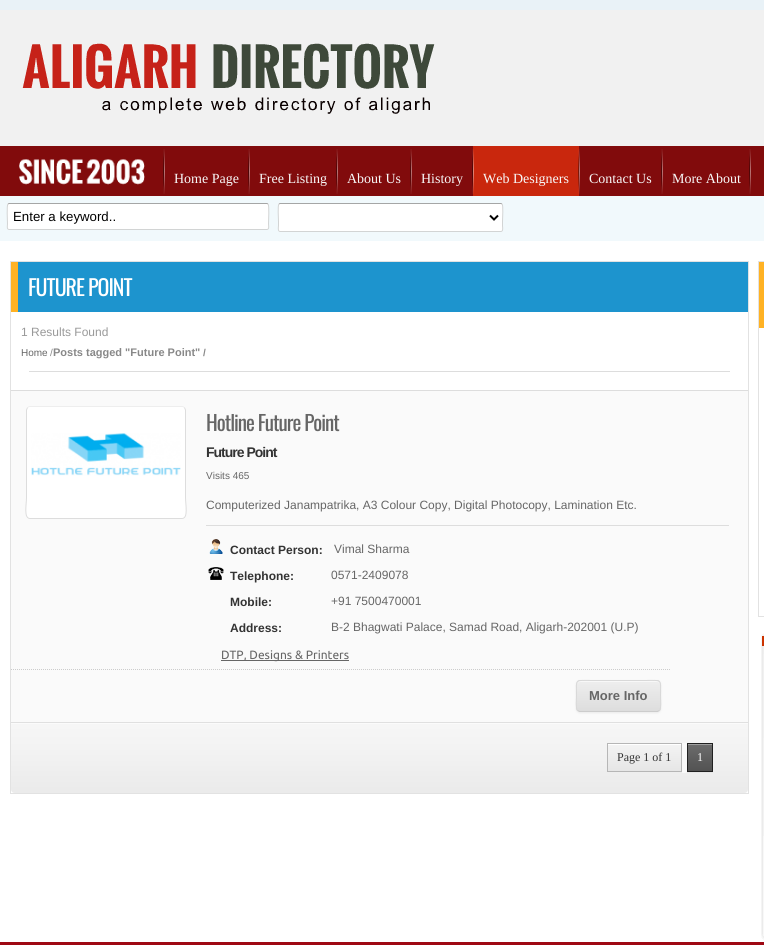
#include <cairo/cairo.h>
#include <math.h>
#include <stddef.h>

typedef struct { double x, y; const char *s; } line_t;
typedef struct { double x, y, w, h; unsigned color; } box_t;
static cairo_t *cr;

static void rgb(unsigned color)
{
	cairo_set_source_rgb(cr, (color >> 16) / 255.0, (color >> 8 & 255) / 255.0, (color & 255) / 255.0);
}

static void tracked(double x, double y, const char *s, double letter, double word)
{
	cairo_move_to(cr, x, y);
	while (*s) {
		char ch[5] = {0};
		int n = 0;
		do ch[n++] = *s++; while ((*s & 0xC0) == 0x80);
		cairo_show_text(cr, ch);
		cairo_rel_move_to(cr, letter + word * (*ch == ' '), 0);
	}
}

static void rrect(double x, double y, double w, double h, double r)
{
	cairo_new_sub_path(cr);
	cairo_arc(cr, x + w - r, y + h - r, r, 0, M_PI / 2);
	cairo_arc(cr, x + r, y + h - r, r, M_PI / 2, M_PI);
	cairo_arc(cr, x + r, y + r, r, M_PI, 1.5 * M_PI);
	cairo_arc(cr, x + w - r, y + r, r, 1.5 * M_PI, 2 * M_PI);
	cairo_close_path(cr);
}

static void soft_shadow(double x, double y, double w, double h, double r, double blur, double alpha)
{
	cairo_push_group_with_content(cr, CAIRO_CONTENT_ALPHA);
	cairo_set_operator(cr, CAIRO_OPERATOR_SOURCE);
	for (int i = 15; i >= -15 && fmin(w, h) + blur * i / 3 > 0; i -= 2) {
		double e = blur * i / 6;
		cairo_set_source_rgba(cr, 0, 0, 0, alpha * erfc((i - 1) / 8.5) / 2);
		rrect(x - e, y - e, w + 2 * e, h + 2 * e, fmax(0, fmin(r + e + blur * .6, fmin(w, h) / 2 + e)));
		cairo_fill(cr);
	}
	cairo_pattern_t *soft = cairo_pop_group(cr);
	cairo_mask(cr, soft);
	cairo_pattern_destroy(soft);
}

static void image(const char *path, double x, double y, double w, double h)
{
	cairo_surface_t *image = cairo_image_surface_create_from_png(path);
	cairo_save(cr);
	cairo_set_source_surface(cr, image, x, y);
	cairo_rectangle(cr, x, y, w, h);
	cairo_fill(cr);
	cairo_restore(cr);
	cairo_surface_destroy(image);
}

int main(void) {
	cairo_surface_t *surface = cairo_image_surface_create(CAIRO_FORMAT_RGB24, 764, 945);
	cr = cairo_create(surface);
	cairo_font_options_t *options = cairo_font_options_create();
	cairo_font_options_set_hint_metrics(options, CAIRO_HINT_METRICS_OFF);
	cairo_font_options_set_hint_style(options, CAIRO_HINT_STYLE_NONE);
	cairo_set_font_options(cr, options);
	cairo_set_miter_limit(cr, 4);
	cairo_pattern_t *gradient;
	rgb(0xe9f2f7);
	cairo_paint(cr);
	rgb(0xf1f1f1);
	cairo_rectangle(cr, 0, 10, 764, 136);
	cairo_fill(cr);
	image("img/1.png", 22, 43, 413, 71);
	rgb(0x810b0c);
	cairo_rectangle(cr, 0, 146, 764, 50);
	cairo_fill(cr);
	image("img/2.png", 19, 159, 126, 26);
	image("img/3.png", 163, 149, 2, 45);
	image("img/3.png", 248, 149, 2, 45);
	image("img/3.png", 336, 149, 2, 45);
	image("img/3.png", 410, 149, 2, 45);
	rgb(0xc9270d);
	cairo_rectangle(cr, 473, 146, 106, 50);
	cairo_fill(cr);
	image("img/4.png", 472, 149, 2, 45);
	image("img/5.png", 578, 149, 2, 45);
	image("img/3.png", 661, 149, 2, 45);
	image("img/3.png", 749, 149, 2, 45);
	rgb(0xf1f9fc);
	cairo_rectangle(cr, 0, 196, 764, 45);
	cairo_fill(cr);
	rgb(0xffffff);
	rrect(7, 203, 262, 27, 2);
	cairo_fill(cr);
	cairo_new_path(cr);
	cairo_move_to(cr, 8, 204);
	cairo_line_to(cr, 9, 203.5);
	cairo_line_to(cr, 267, 203.5);
	cairo_line_to(cr, 268, 204);
	rgb(0xa5a6a6);
	cairo_set_line_width(cr, 1);
	cairo_stroke(cr);
	cairo_new_path(cr);
	cairo_move_to(cr, 268, 204);
	cairo_curve_to(cr, 269.5, 205, 268.5, 221.5, 268.5, 224);
	cairo_curve_to(cr, 268.5, 225, 269.5, 229.5, 267, 229.5);
	cairo_line_to(cr, 9, 229.5);
	cairo_curve_to(cr, 6.5, 229.5, 7.5, 225, 7.5, 224);
	cairo_curve_to(cr, 7.5, 221.5, 6.5, 205, 8, 204);
	rgb(0xd2d4d4);
	cairo_stroke(cr);
	rgb(0xffffff);
	rrect(278, 203, 225, 29, 2);
	cairo_fill(cr);
	cairo_new_path(cr);
	cairo_move_to(cr, 279, 204);
	cairo_line_to(cr, 280, 203.5);
	cairo_line_to(cr, 501, 203.5);
	cairo_line_to(cr, 502, 204);
	rgb(0xa5a6a6);
	cairo_stroke(cr);
	cairo_new_path(cr);
	cairo_move_to(cr, 502, 204);
	cairo_curve_to(cr, 503.5, 205, 502.5, 219, 502.5, 221.5);
	cairo_line_to(cr, 502.5, 226);
	cairo_curve_to(cr, 502.5, 226.5, 503.5, 231.5, 501, 231.5);
	cairo_line_to(cr, 280, 231.5);
	cairo_curve_to(cr, 277.5, 231.5, 278.5, 226.5, 278.5, 226);
	cairo_line_to(cr, 278.5, 221.5);
	cairo_curve_to(cr, 278.5, 219, 277.5, 205, 279, 204);
	rgb(0xd2d4d4);
	cairo_stroke(cr);
	cairo_new_path(cr);
	cairo_move_to(cr, 490, 215.5);
	cairo_line_to(cr, 494, 219.5);
	cairo_line_to(cr, 498, 215.5);
	rgb(0x000000);
	cairo_set_line_width(cr, 2);
	cairo_stroke(cr);
	rgb(0xffffff);
	cairo_rectangle(cr, 0, 241, 764, 701);
	cairo_fill(cr);
	cairo_rectangle(cr, 10.5, 261.5, 738, 532);
	rgb(0xe2e2e2);
	cairo_set_line_width(cr, 1);
	cairo_stroke(cr);
	{
		static const box_t items[] = {
			{18, 262, 730, 50, 0x1d94ce},
			{11, 262, 7, 50, 0xffb224},
			{29, 371, 701, 1, 0xdddddd},
			{11, 391, 737, 331, 0xfafafa},
			{11, 390, 737, 1, 0xdddddd},
		};
		for (size_t i = 0; i < sizeof items / sizeof *items; i++) {
			rgb(items[i].color);
			cairo_rectangle(cr, items[i].x, items[i].y, items[i].w, items[i].h);
			cairo_fill(cr);
		}
	}
	rgb(0xffffff);
	rrect(26, 406, 160, 113, 4);
	cairo_fill(cr);
	cairo_new_path(cr);
	cairo_move_to(cr, 27.5, 407.5);
	cairo_curve_to(cr, 28, 407, 29, 406.5, 30, 406.5);
	cairo_line_to(cr, 182, 406.5);
	cairo_curve_to(cr, 183, 406.5, 184, 407, 184.5, 407.5);
	rgb(0xeeeeee);
	cairo_stroke(cr);
	cairo_new_path(cr);
	cairo_move_to(cr, 184.5, 407.5);
	cairo_line_to(cr, 185.5, 410);
	cairo_line_to(cr, 185.5, 497.5);
	cairo_curve_to(cr, 185.5, 504.5, 188.5, 518.5, 182, 518.5);
	cairo_line_to(cr, 30, 518.5);
	cairo_curve_to(cr, 23.5, 518.5, 26.5, 504.5, 26.5, 497.5);
	cairo_line_to(cr, 26.5, 410);
	cairo_line_to(cr, 27.5, 407.5);
	rgb(0xdddddd);
	cairo_stroke(cr);
	image("img/6.png", 31, 433, 150, 43);
	cairo_rectangle(cr, 206, 525, 523, 1);
	cairo_fill(cr);
	image("img/7.png", 209, 539, 14, 15);
	image("img/8.png", 208, 567, 16, 13);
	rgb(0x666666);
	cairo_rectangle(cr, 221, 660, 128, 1);
	cairo_fill(cr);
	cairo_new_path(cr);
	cairo_move_to(cr, 11, 669.5);
	cairo_line_to(cr, 671, 669.5);
	rgb(0xcccccc);
	cairo_set_dash(cr, (double[]){1, 1}, 2, 0);
	cairo_stroke(cr);
	rgb(0xaaaaaa);
	soft_shadow(576, 681, 85, 32, 4, 1, 0.2);
	cairo_save(cr);
	rrect(576, 680, 85, 32, 4);
	cairo_clip(cr);
	gradient = cairo_pattern_create_linear(619, 651, 619, 681);
	cairo_pattern_add_color_stop_rgba(gradient, 0, 0.933, 0.933, 0.933, 1);
	cairo_pattern_add_color_stop_rgba(gradient, 1, 0.867, 0.867, 0.867, 1);
	cairo_set_source(cr, gradient);
	cairo_pattern_destroy(gradient);
	cairo_rectangle(cr, 576, 680, 85, 1);
	cairo_fill(cr);
	gradient = cairo_pattern_create_linear(619, 681, 619, 711);
	cairo_pattern_add_color_stop_rgba(gradient, 0, 0.933, 0.933, 0.933, 1);
	cairo_pattern_add_color_stop_rgba(gradient, 1, 0.867, 0.867, 0.867, 1);
	cairo_set_source(cr, gradient);
	cairo_pattern_destroy(gradient);
	cairo_rectangle(cr, 576, 681, 85, 30);
	cairo_fill(cr);
	cairo_restore(cr);
	rgb(0xf8f8f8);
	cairo_new_path(cr);
	cairo_move_to(cr, 580, 682);
	cairo_line_to(cr, 657, 682);
	cairo_curve_to(cr, 659, 682, 660, 683, 660, 685);
	cairo_curve_to(cr, 660, 678, 648, 681, 644, 681);
	cairo_line_to(cr, 593, 681);
	cairo_curve_to(cr, 589, 681, 577, 678, 577, 685);
	cairo_curve_to(cr, 577, 683, 578, 682, 580, 682);
	cairo_close_path(cr);
	cairo_fill(cr);
	cairo_new_path(cr);
	cairo_move_to(cr, 659.5, 710.5);
	cairo_line_to(cr, 657.5, 711.5);
	cairo_line_to(cr, 579.5, 711.5);
	cairo_line_to(cr, 577.5, 710.5);
	rgb(0xcccccc);
	cairo_set_dash(cr, NULL, 0, 0);
	cairo_stroke(cr);
	cairo_new_path(cr);
	cairo_move_to(cr, 577.5, 710.5);
	cairo_curve_to(cr, 575.5, 708, 576.5, 699, 576.5, 696);
	cairo_curve_to(cr, 576.5, 678, 574, 680.5, 593, 680.5);
	cairo_line_to(cr, 644, 680.5);
	cairo_curve_to(cr, 663, 680.5, 660.5, 678, 660.5, 696);
	cairo_curve_to(cr, 660.5, 699, 661.5, 708, 659.5, 710.5);
	rgb(0xd8d8d8);
	cairo_stroke(cr);
	image("img/9.png", 11, 723, 737, 70);
	rgb(0xe0e0e0);
	cairo_rectangle(cr, 11, 722, 737, 1);
	cairo_fill(cr);
	rgb(0xf9f9f9);
	cairo_rectangle(cr, 682, 743, 5, 30);
	cairo_fill(cr);
	gradient = cairo_pattern_create_linear(608, 744, 608, 771);
	cairo_pattern_add_color_stop_rgba(gradient, 0.02, 1, 1, 1, 1);
	cairo_pattern_add_color_stop_rgba(gradient, 0.02, 0.953, 0.953, 0.953, 1);
	cairo_pattern_add_color_stop_rgba(gradient, 1, 0.902, 0.902, 0.902, 1);
	cairo_set_source(cr, gradient);
	cairo_pattern_destroy(gradient);
	cairo_rectangle(cr, 608, 744, 73, 27);
	cairo_fill(cr);
	cairo_rectangle(cr, 607.5, 743.5, 74, 28);
	rgb(0xb6b6b6);
	cairo_stroke(cr);
	rgb(0xe7e7e7);
	cairo_rectangle(cr, 687, 772, 26, 1);
	cairo_fill(cr);
	gradient = cairo_pattern_create_linear(688, 744, 688, 771);
	cairo_pattern_add_color_stop_rgba(gradient, 0.02, 0.624, 0.624, 0.624, 1);
	cairo_pattern_add_color_stop_rgba(gradient, 0.02, 0.424, 0.424, 0.424, 1);
	cairo_pattern_add_color_stop_rgba(gradient, 1, 0.322, 0.322, 0.322, 1);
	cairo_set_source(cr, gradient);
	cairo_pattern_destroy(gradient);
	cairo_rectangle(cr, 688, 744, 24, 27);
	cairo_fill(cr);
	cairo_rectangle(cr, 687.5, 743.5, 25, 28);
	rgb(0x202020);
	cairo_stroke(cr);
	cairo_rectangle(cr, 758.5, 261.5, 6, 355);
	rgb(0xe2e2e2);
	cairo_stroke(cr);
	rgb(0xffb224);
	cairo_rectangle(cr, 759, 262, 5, 66);
	cairo_fill(cr);
	image("img/10.png", 761, 633, 3, 307);
	rgb(0x9e0813);
	cairo_rectangle(cr, 0, 942, 764, 3);
	cairo_fill(cr);
	cairo_select_font_face(cr, "Liberation Serif", CAIRO_FONT_SLANT_NORMAL, CAIRO_FONT_WEIGHT_NORMAL);
	cairo_set_font_size(cr, 14);
	rgb(0xf8f8f8);
	{
		static const line_t items[] = {
			{174, 183, "Home Page"},
			{259, 183, "Free Listing"},
			{347, 183, "About Us"},
			{421, 183, "History"},
			{483, 183, "Web Designers"},
			{589, 183, "Contact Us"},
			{672, 183, "More About"},
		};
		for (size_t i = 0; i < sizeof items / sizeof *items; i++) {
			cairo_move_to(cr, items[i].x, items[i].y);
			cairo_show_text(cr, items[i].s);
		}
	}
	cairo_select_font_face(cr, "Liberation Sans", CAIRO_FONT_SLANT_NORMAL, CAIRO_FONT_WEIGHT_NORMAL);
	cairo_set_font_size(cr, 13.25);
	rgb(0x000000);
	cairo_move_to(cr, 13, 221);
	cairo_show_text(cr, "Enter a keyword..");
	cairo_select_font_face(cr, "Oswald", CAIRO_FONT_SLANT_NORMAL, CAIRO_FONT_WEIGHT_NORMAL);
	cairo_set_font_size(cr, 22);
	rgb(0xffffff);
	tracked(28, 296, "FUTURE POINT", -1, 0);
	cairo_select_font_face(cr, "Liberation Sans", CAIRO_FONT_SLANT_NORMAL, CAIRO_FONT_WEIGHT_NORMAL);
	cairo_set_font_size(cr, 12);
	rgb(0x999999);
	cairo_move_to(cr, 21, 336);
	cairo_show_text(cr, "1 Results Found");
	cairo_set_font_size(cr, 10);
	rgb(0x666666);
	cairo_move_to(cr, 21, 356);
	cairo_show_text(cr, "Home");
	rgb(0x888888);
	cairo_move_to(cr, 50, 356);
	cairo_show_text(cr, "/");
	cairo_select_font_face(cr, "Liberation Sans", CAIRO_FONT_SLANT_NORMAL, CAIRO_FONT_WEIGHT_BOLD);
	cairo_set_font_size(cr, 11);
	cairo_move_to(cr, 53, 356);
	cairo_show_text(cr, "Posts tagged \"Future Point\"");
	cairo_set_font_size(cr, 10);
	cairo_move_to(cr, 203, 356);
	cairo_show_text(cr, "/");
	cairo_select_font_face(cr, "Oswald", CAIRO_FONT_SLANT_NORMAL, CAIRO_FONT_WEIGHT_NORMAL);
	cairo_set_font_size(cr, 21);
	rgb(0x666666);
	tracked(206, 431, "Hotline Future Point", -1, 0);
	cairo_select_font_face(cr, "Liberation Sans", CAIRO_FONT_SLANT_NORMAL, CAIRO_FONT_WEIGHT_BOLD);
	cairo_set_font_size(cr, 14);
	rgb(0x333333);
	tracked(206, 457, "Future Point", -1, 0);
	cairo_select_font_face(cr, "Liberation Sans", CAIRO_FONT_SLANT_NORMAL, CAIRO_FONT_WEIGHT_NORMAL);
	cairo_set_font_size(cr, 10);
	rgb(0x666666);
	cairo_move_to(cr, 206, 479);
	cairo_show_text(cr, "Visits 465");
	cairo_set_font_size(cr, 12);
	cairo_move_to(cr, 206, 509);
	cairo_show_text(cr, "Computerized Janampatrika, A3 Colour Copy, Digital Photocopy, Lamination Etc.");
	cairo_select_font_face(cr, "Liberation Sans", CAIRO_FONT_SLANT_NORMAL, CAIRO_FONT_WEIGHT_BOLD);
	rgb(0x333333);
	cairo_move_to(cr, 230, 554);
	cairo_show_text(cr, "Contact Person:");
	cairo_select_font_face(cr, "Liberation Sans", CAIRO_FONT_SLANT_NORMAL, CAIRO_FONT_WEIGHT_NORMAL);
	rgb(0x666666);
	cairo_move_to(cr, 334, 553);
	cairo_show_text(cr, "Vimal Sharma");
	cairo_select_font_face(cr, "Liberation Sans", CAIRO_FONT_SLANT_NORMAL, CAIRO_FONT_WEIGHT_BOLD);
	rgb(0x333333);
	cairo_move_to(cr, 230, 580);
	cairo_show_text(cr, "Telephone:");
	cairo_select_font_face(cr, "Liberation Sans", CAIRO_FONT_SLANT_NORMAL, CAIRO_FONT_WEIGHT_NORMAL);
	rgb(0x666666);
	cairo_move_to(cr, 331, 579);
	cairo_show_text(cr, "0571-2409078");
	cairo_select_font_face(cr, "Liberation Sans", CAIRO_FONT_SLANT_NORMAL, CAIRO_FONT_WEIGHT_BOLD);
	rgb(0x333333);
	cairo_move_to(cr, 230, 606);
	cairo_show_text(cr, "Mobile:");
	cairo_select_font_face(cr, "Liberation Sans", CAIRO_FONT_SLANT_NORMAL, CAIRO_FONT_WEIGHT_NORMAL);
	rgb(0x666666);
	cairo_move_to(cr, 331, 605);
	cairo_show_text(cr, "+91 7500470001");
	cairo_select_font_face(cr, "Liberation Sans", CAIRO_FONT_SLANT_NORMAL, CAIRO_FONT_WEIGHT_BOLD);
	rgb(0x333333);
	cairo_move_to(cr, 230, 632);
	cairo_show_text(cr, "Address:");
	cairo_select_font_face(cr, "Liberation Sans", CAIRO_FONT_SLANT_NORMAL, CAIRO_FONT_WEIGHT_NORMAL);
	rgb(0x666666);
	cairo_move_to(cr, 331, 631);
	cairo_show_text(cr, "B-2 Bhagwati Palace, Samad Road, Aligarh-202001 (U.P)");
	cairo_select_font_face(cr, "Ubuntu", CAIRO_FONT_SLANT_NORMAL, CAIRO_FONT_WEIGHT_NORMAL);
	cairo_move_to(cr, 221, 659);
	cairo_show_text(cr, "DTP, Designs & Printers");
	cairo_select_font_face(cr, "Liberation Sans", CAIRO_FONT_SLANT_NORMAL, CAIRO_FONT_WEIGHT_BOLD);
	cairo_set_font_size(cr, 13);
	cairo_move_to(cr, 589, 700);
	cairo_show_text(cr, "More Info");
	cairo_select_font_face(cr, "Liberation Serif", CAIRO_FONT_SLANT_NORMAL, CAIRO_FONT_WEIGHT_NORMAL);
	cairo_set_font_size(cr, 12);
	rgb(0x333333);
	cairo_move_to(cr, 617, 761);
	cairo_show_text(cr, "Page 1 of 1");
	rgb(0xffffff);
	cairo_move_to(cr, 697, 761);
	cairo_show_text(cr, "1");
	cairo_surface_write_to_png(surface, "page.png");
	cairo_font_options_destroy(options);
	cairo_destroy(cr);
	cairo_surface_destroy(surface);
	return 0;
}
